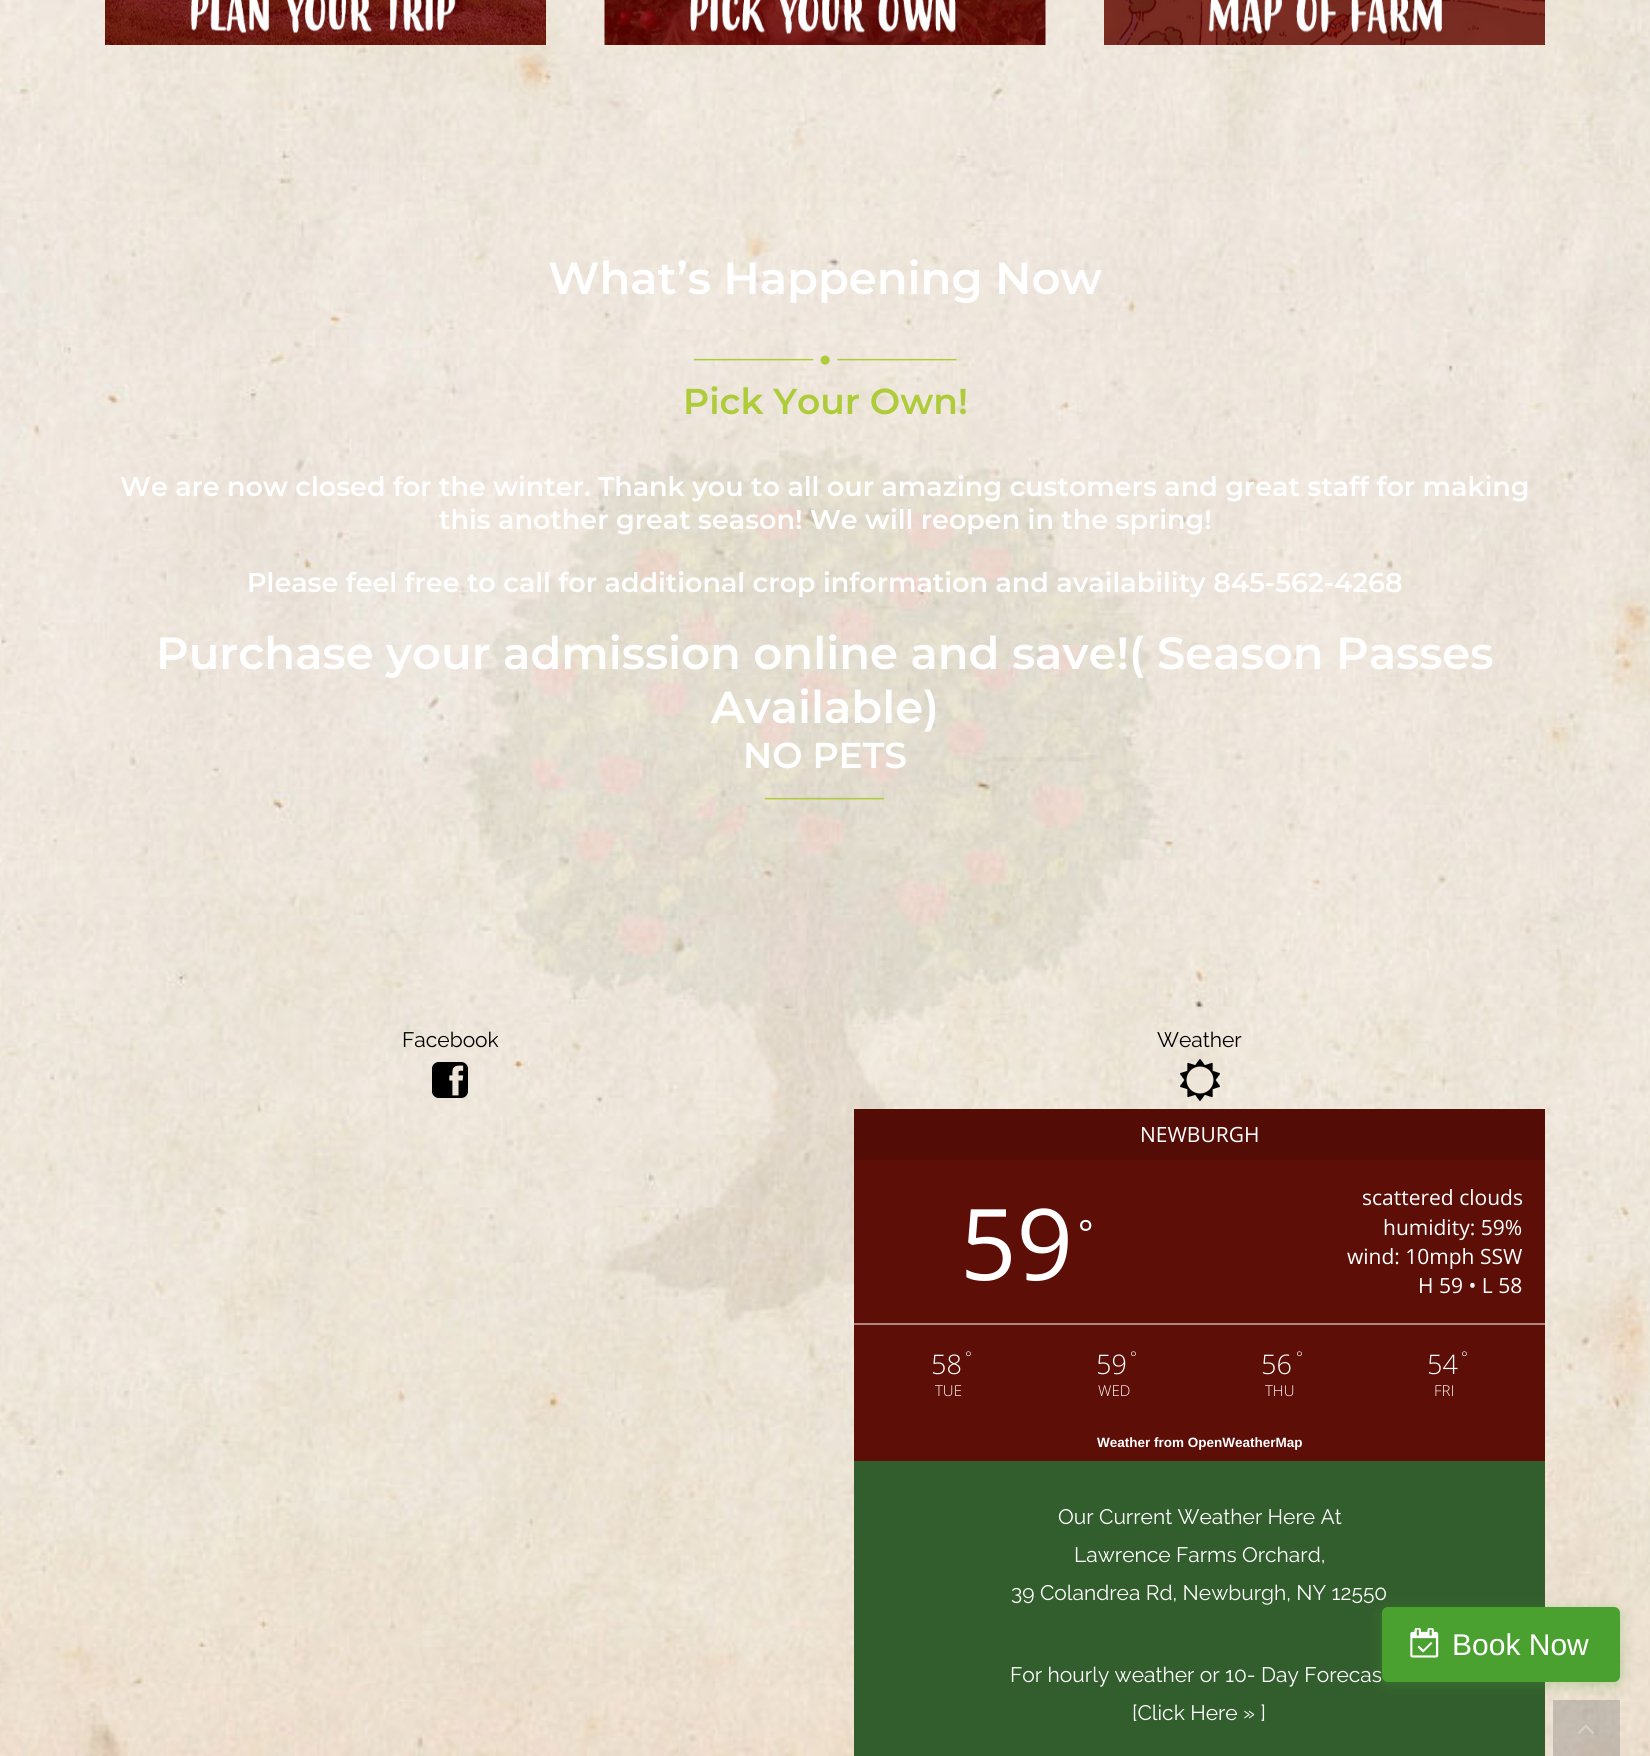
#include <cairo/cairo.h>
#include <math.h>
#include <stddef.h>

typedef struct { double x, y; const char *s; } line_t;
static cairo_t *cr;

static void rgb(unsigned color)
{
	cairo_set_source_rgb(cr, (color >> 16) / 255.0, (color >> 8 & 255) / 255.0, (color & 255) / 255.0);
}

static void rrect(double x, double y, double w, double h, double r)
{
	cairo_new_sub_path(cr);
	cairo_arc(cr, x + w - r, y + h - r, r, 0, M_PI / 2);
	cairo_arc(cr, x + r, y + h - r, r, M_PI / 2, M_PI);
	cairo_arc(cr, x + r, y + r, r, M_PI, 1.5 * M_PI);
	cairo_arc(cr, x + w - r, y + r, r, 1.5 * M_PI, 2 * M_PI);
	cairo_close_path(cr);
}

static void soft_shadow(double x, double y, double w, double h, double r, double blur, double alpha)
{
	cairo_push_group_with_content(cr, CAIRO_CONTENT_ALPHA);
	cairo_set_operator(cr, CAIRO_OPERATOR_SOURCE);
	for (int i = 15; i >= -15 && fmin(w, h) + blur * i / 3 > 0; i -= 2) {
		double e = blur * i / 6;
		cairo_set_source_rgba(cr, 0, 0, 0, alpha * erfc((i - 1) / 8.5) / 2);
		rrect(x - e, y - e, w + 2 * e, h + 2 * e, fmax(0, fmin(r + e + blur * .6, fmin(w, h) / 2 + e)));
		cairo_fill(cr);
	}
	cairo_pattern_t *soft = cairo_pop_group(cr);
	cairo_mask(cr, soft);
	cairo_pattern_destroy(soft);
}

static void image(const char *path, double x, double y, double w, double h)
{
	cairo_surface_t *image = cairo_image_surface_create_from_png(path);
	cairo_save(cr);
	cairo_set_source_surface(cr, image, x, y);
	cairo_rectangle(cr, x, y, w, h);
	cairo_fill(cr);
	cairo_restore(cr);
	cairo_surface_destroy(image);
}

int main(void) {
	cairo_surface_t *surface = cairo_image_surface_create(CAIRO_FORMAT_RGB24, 1650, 1756);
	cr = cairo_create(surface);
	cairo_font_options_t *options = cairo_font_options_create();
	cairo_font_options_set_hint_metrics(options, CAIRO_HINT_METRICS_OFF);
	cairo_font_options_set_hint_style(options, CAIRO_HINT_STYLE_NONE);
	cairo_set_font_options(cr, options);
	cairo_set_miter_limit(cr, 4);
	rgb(0xffffff);
	cairo_paint(cr);
	image("img/1.png", 0, 0, 1650, 1756);
	image("img/2.png", 105, 0, 441, 45);
	image("img/3.png", 604, 0, 442, 45);
	image("img/4.png", 1104, 0, 441, 45);
	image("img/5.png", 432, 1062, 36, 36);
	image("img/6.png", 1180, 1059, 40, 42);
	rgb(0x325d2d);
	cairo_rectangle(cr, 854, 1461, 691, 295);
	cairo_fill(cr);
	rgb(0x5d0e07);
	cairo_rectangle(cr, 854, 1160, 691, 301);
	cairo_fill(cr);
	rgb(0x540d06);
	cairo_rectangle(cr, 854, 1109, 691, 51);
	cairo_fill(cr);
	rgb(0xae8783);
	cairo_rectangle(cr, 854, 1323, 691, 2);
	cairo_fill(cr);
	cairo_set_source_rgba(cr, 0.4, 0.4, 0.4, 0.3);
	cairo_rectangle(cr, 1553, 1700, 67, 56);
	cairo_fill(cr);
	rgb(0x4ba130);
	soft_shadow(1382, 1610, 238, 75, 6, 7.5, 0.3);
	rgb(0x4ba130);
	rrect(1383, 1608, 236, 73, 5);
	cairo_fill_preserve(cr);
	cairo_stroke(cr);
	image("img/7.png", 1410, 1628, 29, 30);
	image("img/8.png", 1578, 1724, 16, 10);
	cairo_select_font_face(cr, "Montserrat SemiBold", CAIRO_FONT_SLANT_NORMAL, CAIRO_FONT_WEIGHT_NORMAL);
	cairo_set_font_size(cr, 45);
	rgb(0xffffff);
	cairo_move_to(cr, 548, 294);
	cairo_show_text(cr, "What’s Happening Now");
	cairo_select_font_face(cr, "Liberation Sans", CAIRO_FONT_SLANT_NORMAL, CAIRO_FONT_WEIGHT_NORMAL);
	cairo_set_font_size(cr, 21);
	rgb(0xaecb39);
	cairo_move_to(cr, 694, 366);
	cairo_show_text(cr, "──────── ● ────────");
	cairo_select_font_face(cr, "Montserrat SemiBold", CAIRO_FONT_SLANT_NORMAL, CAIRO_FONT_WEIGHT_NORMAL);
	cairo_set_font_size(cr, 36);
	cairo_move_to(cr, 683, 414);
	cairo_show_text(cr, "Pick Your Own!");
	cairo_set_font_size(cr, 27);
	rgb(0xffffff);
	{
		static const line_t items[] = {
			{120, 496, "We are now closed for the winter. Thank you to all our amazing customers and great staff for making"},
			{439, 529, "this another great season! We will reopen in the spring!"},
			{247, 592, "Please feel free to call for additional crop information and availability 845-562-4268"},
		};
		for (size_t i = 0; i < sizeof items / sizeof *items; i++) {
			cairo_move_to(cr, items[i].x, items[i].y);
			cairo_show_text(cr, items[i].s);
		}
	}
	cairo_set_font_size(cr, 45);
	cairo_move_to(cr, 156, 669);
	cairo_show_text(cr, "Purchase your admission online and save!( Season Passes");
	cairo_move_to(cr, 711, 723);
	cairo_show_text(cr, "Available)");
	cairo_set_font_size(cr, 36);
	cairo_move_to(cr, 743, 768);
	cairo_show_text(cr, "NO PETS");
	cairo_select_font_face(cr, "Liberation Sans", CAIRO_FONT_SLANT_NORMAL, CAIRO_FONT_WEIGHT_NORMAL);
	cairo_set_font_size(cr, 21);
	rgb(0xaecb39);
	cairo_move_to(cr, 765, 805);
	cairo_show_text(cr, "────────");
	cairo_select_font_face(cr, "Raleway Thin", CAIRO_FONT_SLANT_NORMAL, CAIRO_FONT_WEIGHT_NORMAL);
	rgb(0x000000);
	cairo_move_to(cr, 402, 1047);
	cairo_show_text(cr, "Facebook");
	cairo_move_to(cr, 1157, 1047);
	cairo_show_text(cr, "Weather");
	cairo_select_font_face(cr, "Open Sans", CAIRO_FONT_SLANT_NORMAL, CAIRO_FONT_WEIGHT_NORMAL);
	rgb(0xffffff);
	cairo_move_to(cr, 1140, 1142);
	cairo_show_text(cr, "NEWBURGH");
	cairo_set_font_size(cr, 99);
	cairo_move_to(cr, 960, 1280);
	cairo_show_text(cr, "59");
	cairo_set_font_size(cr, 36);
	cairo_move_to(cr, 1078, 1246);
	cairo_show_text(cr, "°");
	cairo_set_font_size(cr, 21);
	{
		static const line_t items[] = {
			{1362, 1205, "scattered clouds"},
			{1383, 1235, "humidity: 59%"},
			{1347, 1264, "wind: 10mph SSW"},
			{1418, 1293, "H 59 • L 58"},
		};
		for (size_t i = 0; i < sizeof items / sizeof *items; i++) {
			cairo_move_to(cr, items[i].x, items[i].y);
			cairo_show_text(cr, items[i].s);
		}
	}
	cairo_select_font_face(cr, "Open Sans Light", CAIRO_FONT_SLANT_NORMAL, CAIRO_FONT_WEIGHT_NORMAL);
	cairo_set_font_size(cr, 16);
	cairo_move_to(cr, 965, 1363);
	cairo_show_text(cr, "°");
	cairo_set_font_size(cr, 27);
	cairo_move_to(cr, 931, 1374);
	cairo_show_text(cr, "58");
	cairo_set_font_size(cr, 15);
	cairo_move_to(cr, 935, 1396);
	cairo_show_text(cr, "TUE");
	cairo_set_font_size(cr, 16);
	cairo_move_to(cr, 1130, 1363);
	cairo_show_text(cr, "°");
	cairo_set_font_size(cr, 27);
	cairo_move_to(cr, 1096, 1374);
	cairo_show_text(cr, "59");
	cairo_set_font_size(cr, 15);
	cairo_move_to(cr, 1098, 1396);
	cairo_show_text(cr, "WED");
	cairo_set_font_size(cr, 16);
	cairo_move_to(cr, 1296, 1363);
	cairo_show_text(cr, "°");
	cairo_set_font_size(cr, 27);
	cairo_move_to(cr, 1261, 1374);
	cairo_show_text(cr, "56");
	cairo_set_font_size(cr, 15);
	cairo_move_to(cr, 1265, 1396);
	cairo_show_text(cr, "THU");
	cairo_set_font_size(cr, 16);
	cairo_move_to(cr, 1461, 1363);
	cairo_show_text(cr, "°");
	cairo_set_font_size(cr, 27);
	cairo_move_to(cr, 1427, 1374);
	cairo_show_text(cr, "54");
	cairo_set_font_size(cr, 15);
	cairo_move_to(cr, 1434, 1396);
	cairo_show_text(cr, "FRI");
	cairo_select_font_face(cr, "Liberation Sans", CAIRO_FONT_SLANT_NORMAL, CAIRO_FONT_WEIGHT_BOLD);
	cairo_set_font_size(cr, 13.5);
	cairo_move_to(cr, 1097, 1447);
	cairo_show_text(cr, "Weather from OpenWeatherMap");
	cairo_select_font_face(cr, "Raleway Thin", CAIRO_FONT_SLANT_NORMAL, CAIRO_FONT_WEIGHT_NORMAL);
	cairo_set_font_size(cr, 21);
	{
		static const line_t items[] = {
			{1058, 1524, "Our Current Weather Here At"},
			{1074, 1562, "Lawrence Farms Orchard,"},
			{1011, 1600, "39 Colandrea Rd, Newburgh, NY 12550"},
			{1010, 1682, "For hourly weather or 10- Day Forecas"},
			{1132, 1720, "[Click Here » ]"},
		};
		for (size_t i = 0; i < sizeof items / sizeof *items; i++) {
			cairo_move_to(cr, items[i].x, items[i].y);
			cairo_show_text(cr, items[i].s);
		}
	}
	cairo_select_font_face(cr, "Liberation Sans", CAIRO_FONT_SLANT_NORMAL, CAIRO_FONT_WEIGHT_NORMAL);
	cairo_set_font_size(cr, 30);
	cairo_move_to(cr, 1452, 1655);
	cairo_show_text(cr, "Book Now");
	cairo_surface_write_to_png(surface, "page.png");
	cairo_font_options_destroy(options);
	cairo_destroy(cr);
	cairo_surface_destroy(surface);
	return 0;
}
